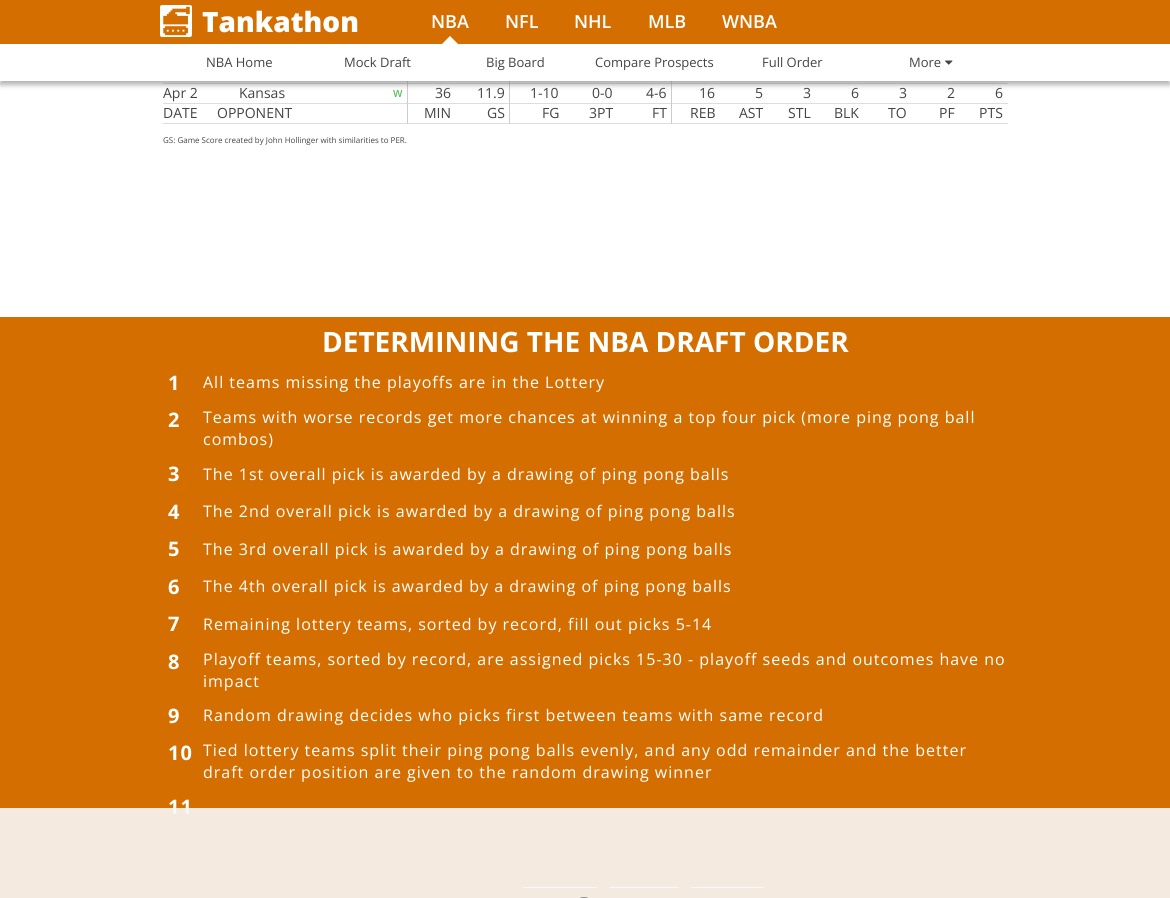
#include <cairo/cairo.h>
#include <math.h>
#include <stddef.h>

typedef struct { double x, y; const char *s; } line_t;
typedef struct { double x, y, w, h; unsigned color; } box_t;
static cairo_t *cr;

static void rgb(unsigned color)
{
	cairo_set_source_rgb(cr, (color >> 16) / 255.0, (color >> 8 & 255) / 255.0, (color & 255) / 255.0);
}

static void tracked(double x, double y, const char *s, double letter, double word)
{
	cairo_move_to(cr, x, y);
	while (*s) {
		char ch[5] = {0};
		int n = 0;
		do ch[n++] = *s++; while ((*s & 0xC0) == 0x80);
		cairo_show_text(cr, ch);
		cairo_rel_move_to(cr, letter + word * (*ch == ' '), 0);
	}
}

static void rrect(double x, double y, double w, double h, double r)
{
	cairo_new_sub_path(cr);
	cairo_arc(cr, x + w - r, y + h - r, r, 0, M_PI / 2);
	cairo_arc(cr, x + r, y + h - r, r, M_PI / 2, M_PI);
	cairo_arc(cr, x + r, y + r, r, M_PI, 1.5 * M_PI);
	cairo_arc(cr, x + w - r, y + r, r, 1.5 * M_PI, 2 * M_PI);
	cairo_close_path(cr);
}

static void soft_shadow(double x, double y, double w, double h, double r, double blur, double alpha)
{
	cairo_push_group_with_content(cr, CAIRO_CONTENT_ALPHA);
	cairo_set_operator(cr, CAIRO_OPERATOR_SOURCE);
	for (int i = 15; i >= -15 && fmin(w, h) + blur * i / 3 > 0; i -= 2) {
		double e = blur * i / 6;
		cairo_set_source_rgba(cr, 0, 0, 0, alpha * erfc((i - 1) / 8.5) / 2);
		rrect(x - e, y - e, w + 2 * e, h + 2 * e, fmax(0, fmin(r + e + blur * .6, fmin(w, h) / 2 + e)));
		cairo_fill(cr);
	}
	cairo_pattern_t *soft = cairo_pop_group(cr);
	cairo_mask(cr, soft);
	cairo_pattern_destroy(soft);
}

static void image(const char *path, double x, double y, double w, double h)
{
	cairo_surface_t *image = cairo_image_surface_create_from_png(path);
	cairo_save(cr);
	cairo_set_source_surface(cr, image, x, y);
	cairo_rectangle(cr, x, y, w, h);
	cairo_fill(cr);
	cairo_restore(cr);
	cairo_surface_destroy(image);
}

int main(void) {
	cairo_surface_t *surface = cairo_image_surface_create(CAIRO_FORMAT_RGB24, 1170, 898);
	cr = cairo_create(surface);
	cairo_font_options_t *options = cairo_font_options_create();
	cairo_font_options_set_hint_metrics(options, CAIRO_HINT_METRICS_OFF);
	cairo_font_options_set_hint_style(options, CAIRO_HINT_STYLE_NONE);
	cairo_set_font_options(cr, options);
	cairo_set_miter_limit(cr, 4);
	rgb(0xffffff);
	cairo_paint(cr);
	{
		static const box_t items[] = {
			{163, 81, 844, 2, 0xfafafa},
			{163, 83, 845, 1, 0xdddddd},
			{163, 103, 845, 1, 0xdddddd},
			{163, 123, 845, 1, 0xdddddd},
			{407, 81, 1, 43, 0xcccccc},
			{509, 81, 1, 43, 0xcccccc},
			{671, 81, 1, 43, 0xcccccc},
		};
		for (size_t i = 0; i < sizeof items / sizeof *items; i++) {
			rgb(items[i].color);
			cairo_rectangle(cr, items[i].x, items[i].y, items[i].w, items[i].h);
			cairo_fill(cr);
		}
	}
	rgb(0x646464);
	soft_shadow(0, 4, 1170, 81, 0, 2.5, 0.49);
	rgb(0xffffff);
	cairo_rectangle(cr, 0, 44, 1170, 37);
	cairo_fill(cr);
	rgb(0xd56e00);
	cairo_rectangle(cr, 0, 0, 1170, 44);
	cairo_fill(cr);
	rgb(0xffffff);
	rrect(160, 5, 32, 32, 2);
	cairo_fill(cr);
	image("img/1.png", 163, 6, 27, 30);
	cairo_new_path(cr);
	cairo_move_to(cr, 458, 44);
	cairo_line_to(cr, 442, 44);
	cairo_line_to(cr, 450, 36);
	cairo_close_path(cr);
	cairo_fill(cr);
	image("img/2.png", 945, 60, 8, 5);
	{
		static const box_t items[] = {
			{0, 317, 1170, 581, 0xd56e00},
			{523, 887, 74, 1, 0xffffff},
			{610, 887, 69, 1, 0xffffff},
			{691, 887, 73, 1, 0xffffff},
		};
		for (size_t i = 0; i < sizeof items / sizeof *items; i++) {
			rgb(items[i].color);
			cairo_rectangle(cr, items[i].x, items[i].y, items[i].w, items[i].h);
			cairo_fill(cr);
		}
	}
	cairo_select_font_face(cr, "Open Sans ExtraBold", CAIRO_FONT_SLANT_NORMAL, CAIRO_FONT_WEIGHT_NORMAL);
	cairo_set_font_size(cr, 28);
	cairo_move_to(cr, 202, 32);
	cairo_show_text(cr, "Tankathon");
	cairo_select_font_face(cr, "Open Sans SemiBold", CAIRO_FONT_SLANT_NORMAL, CAIRO_FONT_WEIGHT_NORMAL);
	cairo_set_font_size(cr, 18);
	{
		static const line_t items[] = {
			{431, 28, "NBA"},
			{505, 28, "NFL"},
			{574, 28, "NHL"},
			{648, 28, "MLB"},
			{722, 28, "WNBA"},
		};
		for (size_t i = 0; i < sizeof items / sizeof *items; i++) {
			cairo_move_to(cr, items[i].x, items[i].y);
			cairo_show_text(cr, items[i].s);
		}
	}
	cairo_select_font_face(cr, "Open Sans", CAIRO_FONT_SLANT_NORMAL, CAIRO_FONT_WEIGHT_NORMAL);
	cairo_set_font_size(cr, 13);
	rgb(0x444444);
	{
		static const line_t items[] = {
			{206, 67, "NBA Home"},
			{344, 67, "Mock Draft"},
			{486, 67, "Big Board"},
			{595, 67, "Compare Prospects"},
			{762, 67, "Full Order"},
			{909, 67, "More"},
		};
		for (size_t i = 0; i < sizeof items / sizeof *items; i++) {
			cairo_move_to(cr, items[i].x, items[i].y);
			cairo_show_text(cr, items[i].s);
		}
	}
	cairo_set_font_size(cr, 14);
	cairo_move_to(cr, 163, 98);
	cairo_show_text(cr, "Apr 2");
	cairo_move_to(cr, 239, 98);
	cairo_show_text(cr, "Kansas");
	cairo_select_font_face(cr, "Open Sans SemiBold", CAIRO_FONT_SLANT_NORMAL, CAIRO_FONT_WEIGHT_NORMAL);
	cairo_set_font_size(cr, 10);
	rgb(0x59bd5e);
	cairo_move_to(cr, 393, 97);
	cairo_show_text(cr, "W");
	cairo_select_font_face(cr, "Open Sans", CAIRO_FONT_SLANT_NORMAL, CAIRO_FONT_WEIGHT_NORMAL);
	cairo_set_font_size(cr, 14);
	rgb(0x444444);
	{
		static const line_t items[] = {
			{435, 98, "36"},
			{477, 98, "11.9"},
			{530, 98, "1-10"},
			{592, 98, "0-0"},
			{646, 98, "4-6"},
			{699, 98, "16"},
			{755, 98, "5"},
			{803, 98, "3"},
			{851, 98, "6"},
			{899, 98, "3"},
			{947, 98, "2"},
			{995, 98, "6"},
			{163, 118, "DATE"},
			{217, 118, "OPPONENT"},
			{424, 118, "MIN"},
			{487, 118, "GS"},
			{542, 118, "FG"},
			{589, 118, "3PT"},
			{652, 118, "FT"},
			{690, 118, "REB"},
			{739, 118, "AST"},
			{788, 118, "STL"},
			{834, 118, "BLK"},
			{888, 118, "TO"},
			{939, 118, "PF"},
			{979, 118, "PTS"},
		};
		for (size_t i = 0; i < sizeof items / sizeof *items; i++) {
			cairo_move_to(cr, items[i].x, items[i].y);
			cairo_show_text(cr, items[i].s);
		}
	}
	cairo_set_font_size(cr, 8);
	cairo_move_to(cr, 163, 143);
	cairo_show_text(cr, "GS: Game Score created by John Hollinger with similarities to PER.");
	cairo_select_font_face(cr, "Open Sans", CAIRO_FONT_SLANT_NORMAL, CAIRO_FONT_WEIGHT_BOLD);
	cairo_set_font_size(cr, 28);
	rgb(0xffffff);
	cairo_move_to(cr, 322, 352);
	cairo_show_text(cr, "DETERMINING THE NBA DRAFT ORDER");
	cairo_set_font_size(cr, 20);
	tracked(168, 390, "1", 1, 0);
	cairo_select_font_face(cr, "Open Sans", CAIRO_FONT_SLANT_NORMAL, CAIRO_FONT_WEIGHT_NORMAL);
	cairo_set_font_size(cr, 16);
	tracked(203, 388, "All teams missing the playoffs are in the Lottery", 1, 0);
	cairo_select_font_face(cr, "Open Sans", CAIRO_FONT_SLANT_NORMAL, CAIRO_FONT_WEIGHT_BOLD);
	cairo_set_font_size(cr, 20);
	tracked(168, 427, "2", 1, 0);
	cairo_select_font_face(cr, "Open Sans", CAIRO_FONT_SLANT_NORMAL, CAIRO_FONT_WEIGHT_NORMAL);
	cairo_set_font_size(cr, 16);
	tracked(203, 423, "Teams with worse records get more chances at winning a top four pick (more ping pong ball", 1, 0);
	tracked(203, 445, "combos)", 1, 0);
	cairo_select_font_face(cr, "Open Sans", CAIRO_FONT_SLANT_NORMAL, CAIRO_FONT_WEIGHT_BOLD);
	cairo_set_font_size(cr, 20);
	tracked(168, 481, "3", 1, 0);
	cairo_select_font_face(cr, "Open Sans", CAIRO_FONT_SLANT_NORMAL, CAIRO_FONT_WEIGHT_NORMAL);
	cairo_set_font_size(cr, 16);
	tracked(203, 480, "The 1st overall pick is awarded by a drawing of ping pong balls", 1, 0);
	cairo_select_font_face(cr, "Open Sans", CAIRO_FONT_SLANT_NORMAL, CAIRO_FONT_WEIGHT_BOLD);
	cairo_set_font_size(cr, 20);
	tracked(168, 519, "4", 1, 0);
	cairo_select_font_face(cr, "Open Sans", CAIRO_FONT_SLANT_NORMAL, CAIRO_FONT_WEIGHT_NORMAL);
	cairo_set_font_size(cr, 16);
	tracked(203, 517, "The 2nd overall pick is awarded by a drawing of ping pong balls", 1, 0);
	cairo_select_font_face(cr, "Open Sans", CAIRO_FONT_SLANT_NORMAL, CAIRO_FONT_WEIGHT_BOLD);
	cairo_set_font_size(cr, 20);
	tracked(168, 556, "5", 1, 0);
	cairo_select_font_face(cr, "Open Sans", CAIRO_FONT_SLANT_NORMAL, CAIRO_FONT_WEIGHT_NORMAL);
	cairo_set_font_size(cr, 16);
	tracked(203, 555, "The 3rd overall pick is awarded by a drawing of ping pong balls", 1, 0);
	cairo_select_font_face(cr, "Open Sans", CAIRO_FONT_SLANT_NORMAL, CAIRO_FONT_WEIGHT_BOLD);
	cairo_set_font_size(cr, 20);
	tracked(168, 594, "6", 1, 0);
	cairo_select_font_face(cr, "Open Sans", CAIRO_FONT_SLANT_NORMAL, CAIRO_FONT_WEIGHT_NORMAL);
	cairo_set_font_size(cr, 16);
	tracked(203, 592, "The 4th overall pick is awarded by a drawing of ping pong balls", 1, 0);
	cairo_select_font_face(cr, "Open Sans", CAIRO_FONT_SLANT_NORMAL, CAIRO_FONT_WEIGHT_BOLD);
	cairo_set_font_size(cr, 20);
	tracked(168, 631, "7", 1, 0);
	cairo_select_font_face(cr, "Open Sans", CAIRO_FONT_SLANT_NORMAL, CAIRO_FONT_WEIGHT_NORMAL);
	cairo_set_font_size(cr, 16);
	tracked(203, 630, "Remaining lottery teams, sorted by record, fill out picks 5-14", 1, 0);
	cairo_select_font_face(cr, "Open Sans", CAIRO_FONT_SLANT_NORMAL, CAIRO_FONT_WEIGHT_BOLD);
	cairo_set_font_size(cr, 20);
	tracked(168, 669, "8", 1, 0);
	cairo_select_font_face(cr, "Open Sans", CAIRO_FONT_SLANT_NORMAL, CAIRO_FONT_WEIGHT_NORMAL);
	cairo_set_font_size(cr, 16);
	tracked(203, 665, "Playoff teams, sorted by record, are assigned picks 15-30 - playoff seeds and outcomes have no", 1, 0);
	tracked(203, 687, "impact", 1, 0);
	cairo_select_font_face(cr, "Open Sans", CAIRO_FONT_SLANT_NORMAL, CAIRO_FONT_WEIGHT_BOLD);
	cairo_set_font_size(cr, 20);
	tracked(168, 723, "9", 1, 0);
	cairo_select_font_face(cr, "Open Sans", CAIRO_FONT_SLANT_NORMAL, CAIRO_FONT_WEIGHT_NORMAL);
	cairo_set_font_size(cr, 16);
	tracked(203, 721, "Random drawing decides who picks first between teams with same record", 1, 0);
	cairo_select_font_face(cr, "Open Sans", CAIRO_FONT_SLANT_NORMAL, CAIRO_FONT_WEIGHT_BOLD);
	cairo_set_font_size(cr, 20);
	tracked(168, 760, "10", 1, 0);
	cairo_select_font_face(cr, "Open Sans", CAIRO_FONT_SLANT_NORMAL, CAIRO_FONT_WEIGHT_NORMAL);
	cairo_set_font_size(cr, 16);
	tracked(203, 756, "Tied lottery teams split their ping pong balls evenly, and any odd remainder and the better", 1, 0);
	tracked(203, 778, "draft order position are given to the random drawing winner", 1, 0);
	cairo_select_font_face(cr, "Open Sans", CAIRO_FONT_SLANT_NORMAL, CAIRO_FONT_WEIGHT_BOLD);
	cairo_set_font_size(cr, 20);
	tracked(168, 814, "11", 1, 0);
	cairo_set_source_rgba(cr, 0.969, 0.969, 0.969, 0.9);
	cairo_rectangle(cr, 0, 808, 1170, 90);
	cairo_fill(cr);
	rrect(573.5, 897.5, 21, 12, 10.5);
	rgb(0xf6f4f1);
	cairo_set_line_width(cr, 1);
	cairo_stroke(cr);
	rrect(573.5, 897.5, 21, 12, 10.5);
	rgb(0x888888);
	cairo_stroke(cr);
	cairo_surface_write_to_png(surface, "page.png");
	cairo_font_options_destroy(options);
	cairo_destroy(cr);
	cairo_surface_destroy(surface);
	return 0;
}
